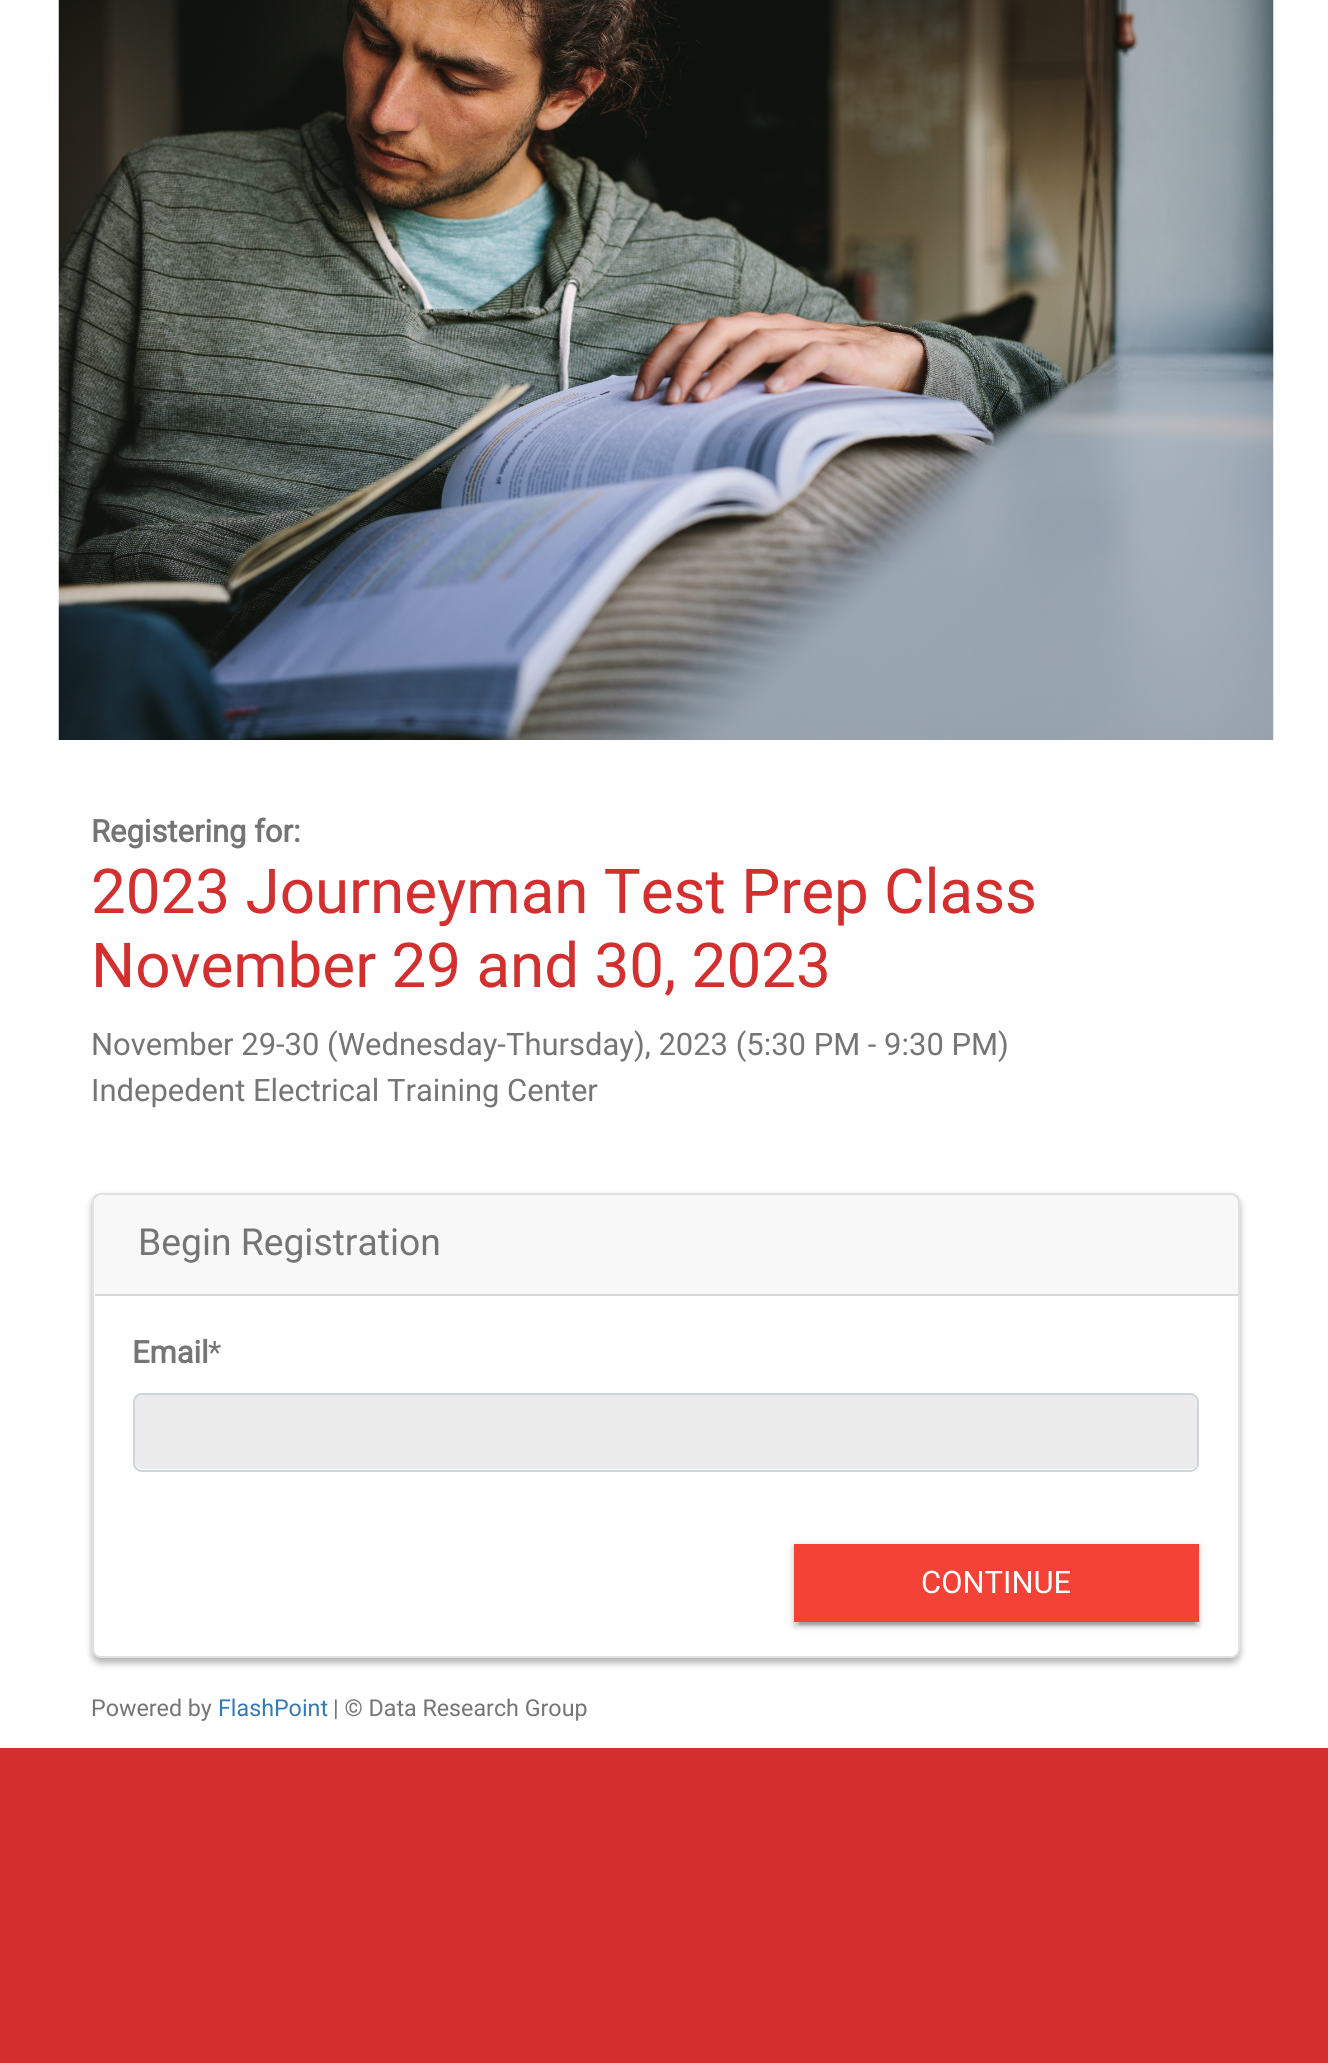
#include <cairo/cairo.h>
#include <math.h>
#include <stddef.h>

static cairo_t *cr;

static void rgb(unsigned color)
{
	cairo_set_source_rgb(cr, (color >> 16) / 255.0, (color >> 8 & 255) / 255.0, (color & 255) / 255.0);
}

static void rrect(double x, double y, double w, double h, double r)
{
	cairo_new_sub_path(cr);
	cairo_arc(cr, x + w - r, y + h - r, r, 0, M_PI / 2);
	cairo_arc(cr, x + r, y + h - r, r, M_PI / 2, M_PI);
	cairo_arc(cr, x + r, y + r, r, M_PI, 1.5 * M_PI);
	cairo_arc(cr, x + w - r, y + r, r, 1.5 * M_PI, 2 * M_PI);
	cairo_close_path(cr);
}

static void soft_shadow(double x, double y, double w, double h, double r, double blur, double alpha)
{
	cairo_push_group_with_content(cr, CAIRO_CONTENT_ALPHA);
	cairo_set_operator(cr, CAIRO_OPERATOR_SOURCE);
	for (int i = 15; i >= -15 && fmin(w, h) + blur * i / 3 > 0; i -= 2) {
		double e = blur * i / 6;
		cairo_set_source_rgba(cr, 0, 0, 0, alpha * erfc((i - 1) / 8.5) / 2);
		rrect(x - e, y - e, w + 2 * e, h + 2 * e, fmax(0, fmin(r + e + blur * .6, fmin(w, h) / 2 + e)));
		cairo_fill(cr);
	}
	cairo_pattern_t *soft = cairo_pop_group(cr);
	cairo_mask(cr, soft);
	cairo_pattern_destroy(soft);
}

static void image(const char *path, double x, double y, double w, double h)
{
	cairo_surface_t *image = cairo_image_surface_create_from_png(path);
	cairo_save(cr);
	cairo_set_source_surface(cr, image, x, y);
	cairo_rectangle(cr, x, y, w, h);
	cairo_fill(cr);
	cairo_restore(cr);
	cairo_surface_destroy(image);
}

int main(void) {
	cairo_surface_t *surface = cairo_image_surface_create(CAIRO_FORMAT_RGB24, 1328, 2063);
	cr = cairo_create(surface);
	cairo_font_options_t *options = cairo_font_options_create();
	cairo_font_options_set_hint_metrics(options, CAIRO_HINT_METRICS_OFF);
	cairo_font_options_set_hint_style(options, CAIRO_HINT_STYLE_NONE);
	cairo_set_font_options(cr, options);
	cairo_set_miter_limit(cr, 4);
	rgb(0xffffff);
	cairo_paint(cr);
	rgb(0xd32f2f);
	cairo_rectangle(cr, 0, 1748, 1328, 315);
	cairo_fill(cr);
	image("img/1.png", 58, 0, 1216, 740);
	rgb(0x000000);
	soft_shadow(92, 1197, 1148, 466, 9, 3.5, 0.3);
	rgb(0xffffff);
	rrect(92, 1193, 1148, 465, 9);
	cairo_fill(cr);
	rrect(93, 1194, 1146, 463, 8);
	cairo_set_source_rgba(cr, 0, 0, 0, 0.12);
	cairo_stroke(cr);
	cairo_set_source_rgba(cr, 0, 0, 0, 0.03);
	cairo_rectangle(cr, 95, 1195, 1143, 99);
	cairo_fill(cr);
	rgb(0xd8d8d8);
	cairo_rectangle(cr, 95, 1294, 1143, 2);
	cairo_fill(cr);
	rgb(0xececec);
	cairo_new_path(cr);
	cairo_move_to(cr, 142, 1395);
	cairo_curve_to(cr, 138, 1395, 135, 1398, 135, 1402);
	cairo_line_to(cr, 135, 1462);
	cairo_curve_to(cr, 135, 1466, 138, 1469, 142, 1469);
	cairo_line_to(cr, 1190, 1469);
	cairo_curve_to(cr, 1194, 1469, 1197, 1466, 1197, 1462);
	cairo_line_to(cr, 1197, 1402);
	cairo_curve_to(cr, 1197, 1398, 1194, 1395, 1190, 1395);
	cairo_close_path(cr);
	cairo_fill(cr);
	rrect(134, 1394, 1064, 77, 8);
	rgb(0xced4da);
	cairo_stroke(cr);
	rgb(0x000000);
	soft_shadow(794, 1546, 405, 79, 0, 5.5, 0.12);
	soft_shadow(799, 1555, 396, 70, 0, 1, 0.2);
	soft_shadow(794, 1548, 405, 79, 0, 2, 0.14);
	rgb(0xf44336);
	cairo_rectangle(cr, 794, 1544, 405, 78);
	cairo_fill(cr);
	cairo_select_font_face(cr, "Roboto", CAIRO_FONT_SLANT_NORMAL, CAIRO_FONT_WEIGHT_BOLD);
	cairo_set_font_size(cr, 30.95);
	rgb(0x757575);
	cairo_move_to(cr, 91, 842);
	cairo_show_text(cr, "Registering for:");
	cairo_select_font_face(cr, "Roboto", CAIRO_FONT_SLANT_NORMAL, CAIRO_FONT_WEIGHT_NORMAL);
	cairo_set_font_size(cr, 61.9);
	rgb(0xd32f2f);
	cairo_move_to(cr, 91, 913);
	cairo_show_text(cr, "2023 Journeyman Test Prep Class");
	cairo_move_to(cr, 91, 987);
	cairo_show_text(cr, "November 29 and 30, 2023");
	cairo_set_font_size(cr, 30.95);
	rgb(0x757575);
	cairo_move_to(cr, 91, 1055);
	cairo_show_text(cr, "November 29-30 (Wednesday-Thursday), 2023 (5:30 PM - 9:30 PM)");
	cairo_move_to(cr, 91, 1101);
	cairo_show_text(cr, "Indepedent Electrical Training Center");
	cairo_set_font_size(cr, 37.25);
	cairo_move_to(cr, 138, 1255);
	cairo_show_text(cr, "Begin Registration");
	cairo_select_font_face(cr, "Roboto", CAIRO_FONT_SLANT_NORMAL, CAIRO_FONT_WEIGHT_BOLD);
	cairo_set_font_size(cr, 30.95);
	cairo_move_to(cr, 132, 1363);
	cairo_show_text(cr, "Email");
	cairo_select_font_face(cr, "Roboto", CAIRO_FONT_SLANT_NORMAL, CAIRO_FONT_WEIGHT_NORMAL);
	cairo_move_to(cr, 208, 1363);
	cairo_show_text(cr, "*");
	rgb(0xffffff);
	cairo_move_to(cr, 921, 1593);
	cairo_show_text(cr, "CONTINUE");
	cairo_set_font_size(cr, 23.25);
	rgb(0x757575);
	cairo_move_to(cr, 91, 1716);
	cairo_show_text(cr, "Powered by");
	rgb(0x337ab7);
	cairo_move_to(cr, 218, 1716);
	cairo_show_text(cr, "FlashPoint");
	rgb(0x757575);
	cairo_move_to(cr, 333, 1716);
	cairo_show_text(cr, "| © Data Research Group");
	cairo_surface_write_to_png(surface, "page.png");
	cairo_font_options_destroy(options);
	cairo_destroy(cr);
	cairo_surface_destroy(surface);
	return 0;
}
